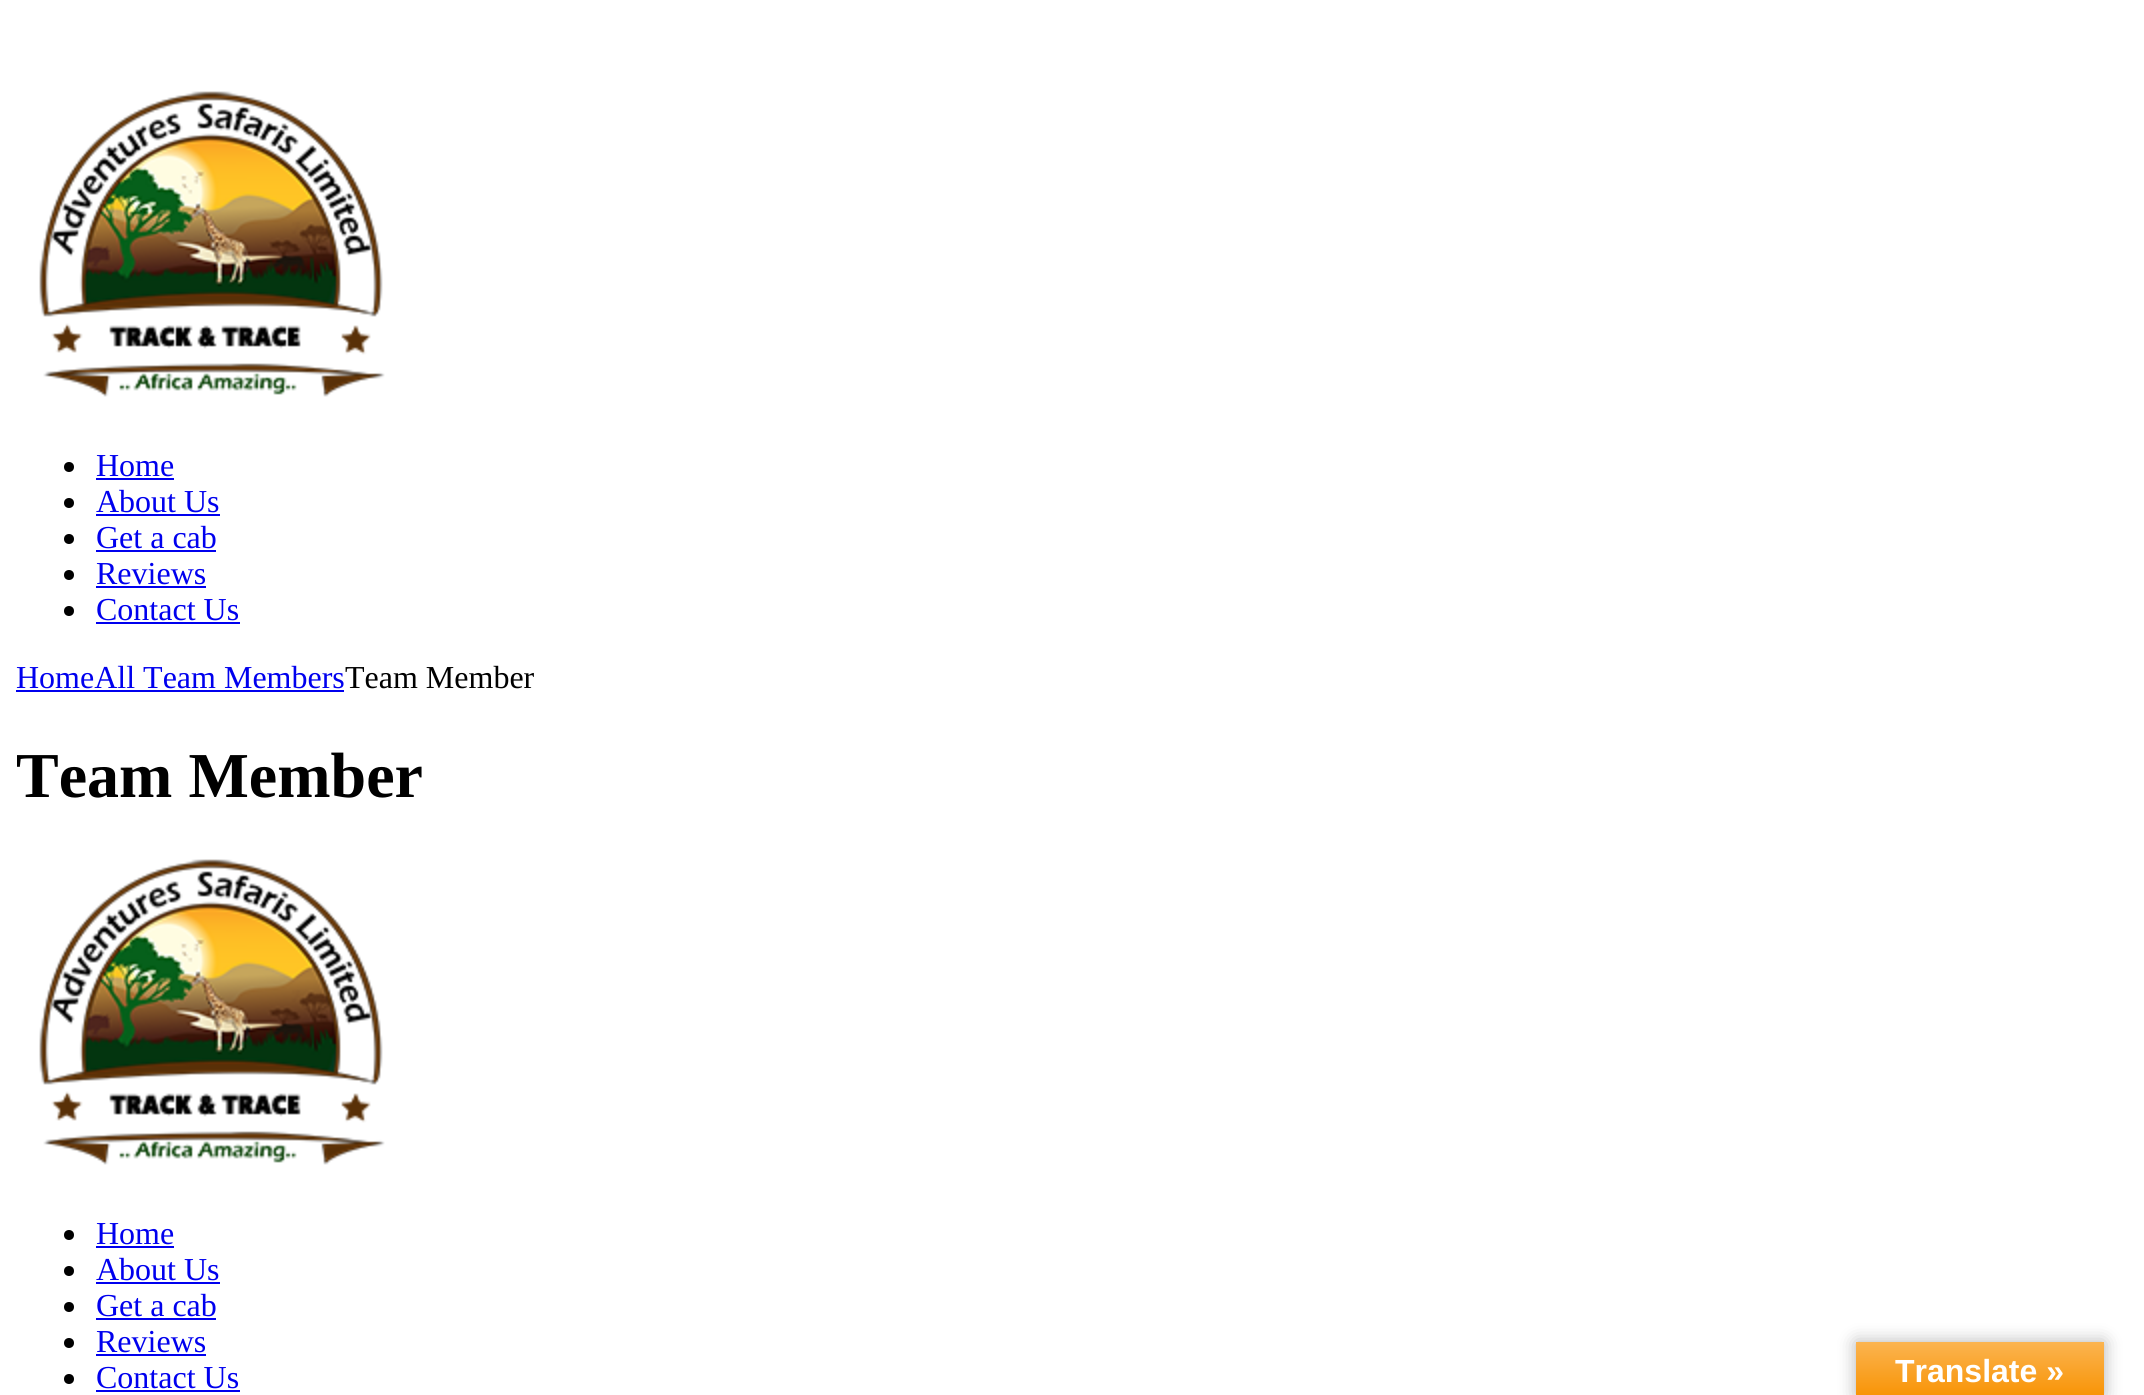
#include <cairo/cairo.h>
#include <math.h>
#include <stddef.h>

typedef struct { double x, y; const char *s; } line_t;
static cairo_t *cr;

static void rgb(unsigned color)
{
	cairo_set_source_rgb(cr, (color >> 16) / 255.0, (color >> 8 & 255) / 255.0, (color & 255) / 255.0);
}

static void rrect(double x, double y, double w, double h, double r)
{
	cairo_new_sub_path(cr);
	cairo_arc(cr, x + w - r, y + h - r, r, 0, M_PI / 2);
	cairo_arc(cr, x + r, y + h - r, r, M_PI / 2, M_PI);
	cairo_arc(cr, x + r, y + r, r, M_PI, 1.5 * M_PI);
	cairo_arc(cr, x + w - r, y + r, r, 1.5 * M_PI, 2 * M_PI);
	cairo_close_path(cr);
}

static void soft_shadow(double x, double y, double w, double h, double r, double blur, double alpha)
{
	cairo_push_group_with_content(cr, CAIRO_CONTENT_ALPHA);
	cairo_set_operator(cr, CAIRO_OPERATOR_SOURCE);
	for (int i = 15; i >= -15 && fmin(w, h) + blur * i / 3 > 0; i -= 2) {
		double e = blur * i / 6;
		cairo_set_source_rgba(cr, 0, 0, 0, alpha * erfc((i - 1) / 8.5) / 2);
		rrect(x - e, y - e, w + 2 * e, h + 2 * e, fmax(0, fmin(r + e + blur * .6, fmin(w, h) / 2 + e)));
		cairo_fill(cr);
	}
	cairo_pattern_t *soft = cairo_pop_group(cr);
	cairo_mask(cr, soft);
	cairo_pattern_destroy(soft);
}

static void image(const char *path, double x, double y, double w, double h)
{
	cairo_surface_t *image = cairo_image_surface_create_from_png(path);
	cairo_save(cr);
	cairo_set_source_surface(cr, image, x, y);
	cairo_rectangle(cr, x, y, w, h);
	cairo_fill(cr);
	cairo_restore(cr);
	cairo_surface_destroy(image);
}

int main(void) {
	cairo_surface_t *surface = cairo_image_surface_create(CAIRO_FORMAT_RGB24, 2144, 1395);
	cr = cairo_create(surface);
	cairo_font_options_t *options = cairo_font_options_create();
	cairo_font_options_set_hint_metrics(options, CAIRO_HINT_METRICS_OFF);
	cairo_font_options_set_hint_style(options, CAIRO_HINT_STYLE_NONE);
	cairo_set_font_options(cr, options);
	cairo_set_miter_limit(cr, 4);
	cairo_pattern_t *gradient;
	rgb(0xffffff);
	cairo_paint(cr);
	image("img/1.png", 39, 91, 346, 306);
	rgb(0x000000);
	cairo_arc(cr, 69, 467, 5, 0, 2 * M_PI);
	cairo_fill(cr);
	rgb(0x0000ee);
	cairo_rectangle(cr, 96, 478, 78, 2);
	cairo_fill(cr);
	rgb(0x000000);
	cairo_arc(cr, 69, 503, 5, 0, 2 * M_PI);
	cairo_fill(cr);
	rgb(0x0000ee);
	cairo_rectangle(cr, 96, 514, 124, 2);
	cairo_fill(cr);
	rgb(0x000000);
	cairo_arc(cr, 69, 539, 5, 0, 2 * M_PI);
	cairo_fill(cr);
	rgb(0x0000ee);
	cairo_rectangle(cr, 96, 550, 120, 2);
	cairo_fill(cr);
	rgb(0x000000);
	cairo_arc(cr, 69, 575, 5, 0, 2 * M_PI);
	cairo_fill(cr);
	rgb(0x0000ee);
	cairo_rectangle(cr, 96, 586, 110, 2);
	cairo_fill(cr);
	rgb(0x000000);
	cairo_arc(cr, 69, 611, 5, 0, 2 * M_PI);
	cairo_fill(cr);
	rgb(0x0000ee);
	cairo_rectangle(cr, 96, 622, 144, 2);
	cairo_fill(cr);
	cairo_rectangle(cr, 16, 690, 328, 2);
	cairo_fill(cr);
	image("img/1.png", 39, 859, 346, 306);
	rgb(0x000000);
	cairo_arc(cr, 69, 1235, 5, 0, 2 * M_PI);
	cairo_fill(cr);
	rgb(0x0000ee);
	cairo_rectangle(cr, 96, 1246, 78, 2);
	cairo_fill(cr);
	rgb(0x000000);
	cairo_arc(cr, 69, 1271, 5, 0, 2 * M_PI);
	cairo_fill(cr);
	rgb(0x0000ee);
	cairo_rectangle(cr, 96, 1282, 124, 2);
	cairo_fill(cr);
	rgb(0x000000);
	cairo_arc(cr, 69, 1307, 5, 0, 2 * M_PI);
	cairo_fill(cr);
	rgb(0x0000ee);
	cairo_rectangle(cr, 96, 1318, 120, 2);
	cairo_fill(cr);
	rgb(0x000000);
	cairo_arc(cr, 69, 1343, 5, 0, 2 * M_PI);
	cairo_fill(cr);
	rgb(0x0000ee);
	cairo_rectangle(cr, 96, 1354, 110, 2);
	cairo_fill(cr);
	rgb(0x000000);
	cairo_arc(cr, 69, 1379, 5, 0, 2 * M_PI);
	cairo_fill(cr);
	rgb(0x0000ee);
	cairo_rectangle(cr, 96, 1390, 144, 2);
	cairo_fill(cr);
	rgb(0x000000);
	soft_shadow(1856, 1342, 248, 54, 0, 9, 0.3);
	gradient = cairo_pattern_create_linear(1980, 1342, 1980, 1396);
	cairo_pattern_add_color_stop_rgba(gradient, 0, 0.984, 0.706, 0.314, 1);
	cairo_pattern_add_color_stop_rgba(gradient, 1, 0.973, 0.58, 0.024, 1);
	cairo_set_source(cr, gradient);
	cairo_pattern_destroy(gradient);
	cairo_rectangle(cr, 1856, 1342, 248, 53);
	cairo_fill(cr);
	cairo_select_font_face(cr, "Liberation Serif", CAIRO_FONT_SLANT_NORMAL, CAIRO_FONT_WEIGHT_NORMAL);
	cairo_set_font_size(cr, 32);
	rgb(0x0000ee);
	{
		static const line_t items[] = {
			{96, 476, "Home"},
			{96, 512, "About Us"},
			{96, 548, "Get a cab"},
			{96, 584, "Reviews"},
			{96, 620, "Contact Us"},
			{16, 688, "HomeAll Team Members"},
		};
		for (size_t i = 0; i < sizeof items / sizeof *items; i++) {
			cairo_move_to(cr, items[i].x, items[i].y);
			cairo_show_text(cr, items[i].s);
		}
	}
	rgb(0x000000);
	cairo_move_to(cr, 345, 688);
	cairo_show_text(cr, "Team Member");
	cairo_select_font_face(cr, "Liberation Serif", CAIRO_FONT_SLANT_NORMAL, CAIRO_FONT_WEIGHT_BOLD);
	cairo_set_font_size(cr, 64);
	cairo_move_to(cr, 16, 797);
	cairo_show_text(cr, "Team Member");
	cairo_select_font_face(cr, "Liberation Serif", CAIRO_FONT_SLANT_NORMAL, CAIRO_FONT_WEIGHT_NORMAL);
	cairo_set_font_size(cr, 32);
	rgb(0x0000ee);
	{
		static const line_t items[] = {
			{96, 1244, "Home"},
			{96, 1280, "About Us"},
			{96, 1316, "Get a cab"},
			{96, 1352, "Reviews"},
			{96, 1388, "Contact Us"},
		};
		for (size_t i = 0; i < sizeof items / sizeof *items; i++) {
			cairo_move_to(cr, items[i].x, items[i].y);
			cairo_show_text(cr, items[i].s);
		}
	}
	cairo_select_font_face(cr, "Liberation Sans", CAIRO_FONT_SLANT_NORMAL, CAIRO_FONT_WEIGHT_BOLD);
	rgb(0xffffff);
	cairo_move_to(cr, 1895, 1382);
	cairo_show_text(cr, "Translate »");
	cairo_surface_write_to_png(surface, "page.png");
	cairo_font_options_destroy(options);
	cairo_destroy(cr);
	cairo_surface_destroy(surface);
	return 0;
}
